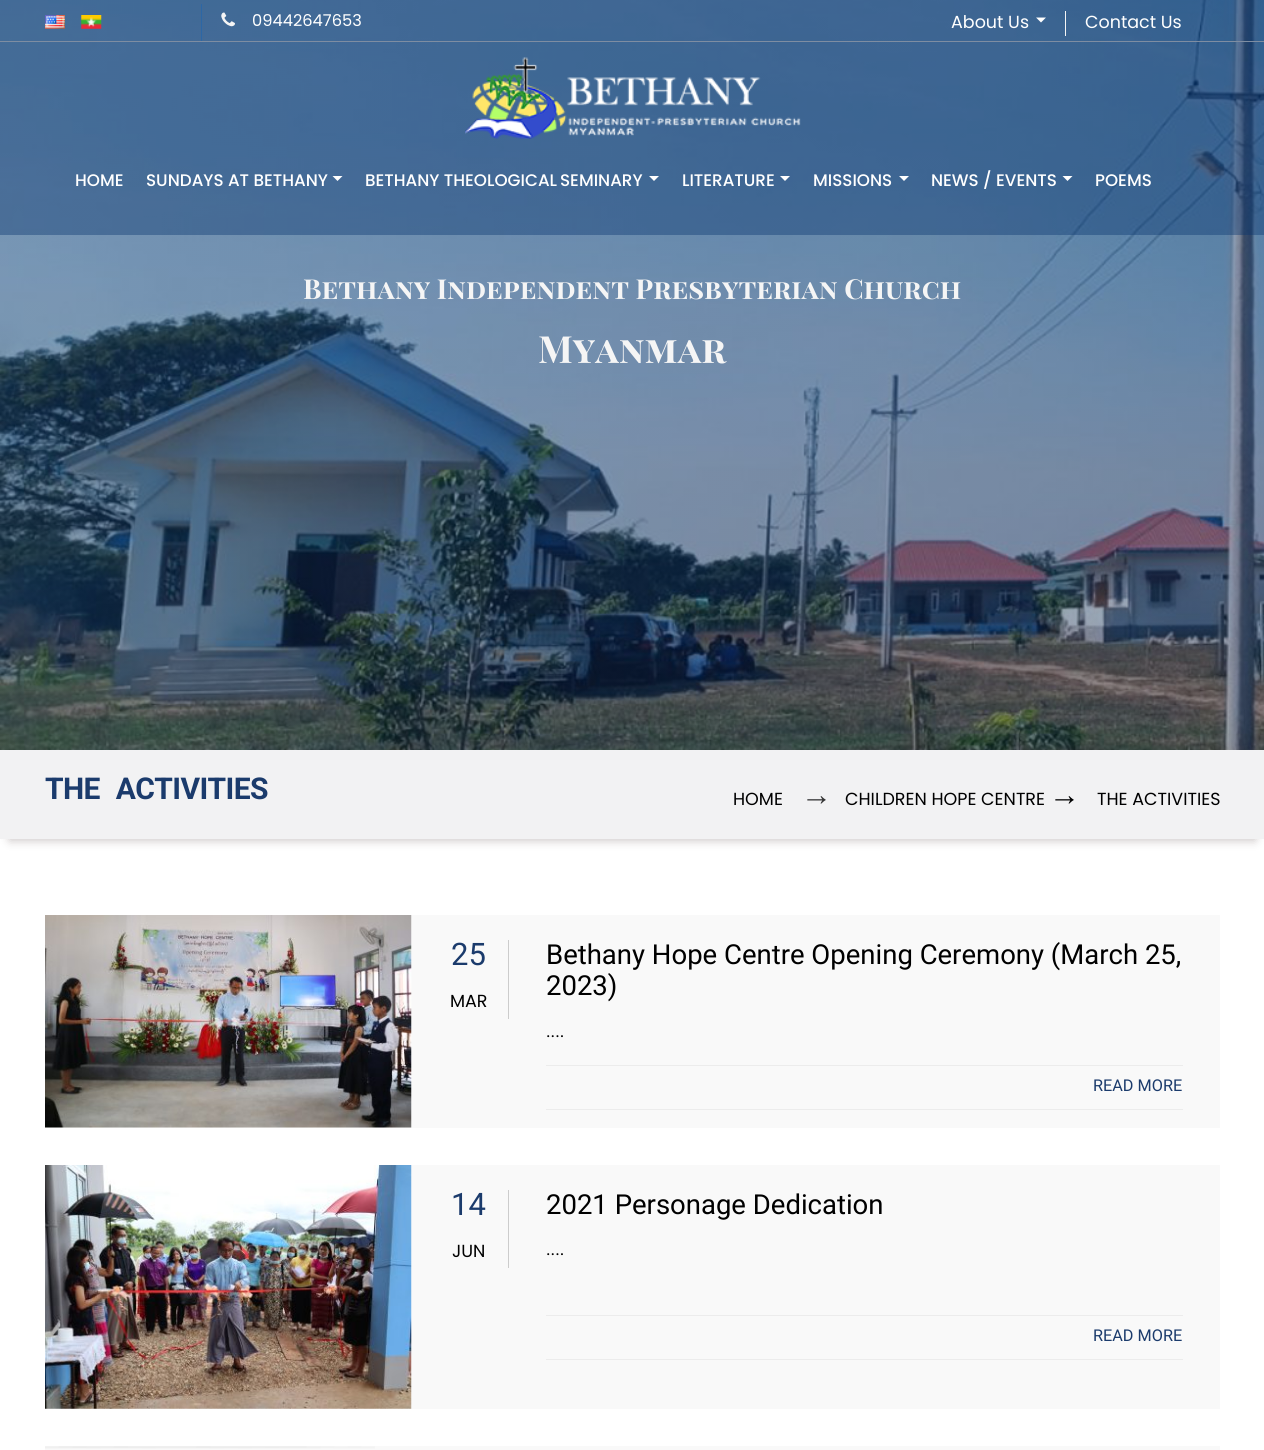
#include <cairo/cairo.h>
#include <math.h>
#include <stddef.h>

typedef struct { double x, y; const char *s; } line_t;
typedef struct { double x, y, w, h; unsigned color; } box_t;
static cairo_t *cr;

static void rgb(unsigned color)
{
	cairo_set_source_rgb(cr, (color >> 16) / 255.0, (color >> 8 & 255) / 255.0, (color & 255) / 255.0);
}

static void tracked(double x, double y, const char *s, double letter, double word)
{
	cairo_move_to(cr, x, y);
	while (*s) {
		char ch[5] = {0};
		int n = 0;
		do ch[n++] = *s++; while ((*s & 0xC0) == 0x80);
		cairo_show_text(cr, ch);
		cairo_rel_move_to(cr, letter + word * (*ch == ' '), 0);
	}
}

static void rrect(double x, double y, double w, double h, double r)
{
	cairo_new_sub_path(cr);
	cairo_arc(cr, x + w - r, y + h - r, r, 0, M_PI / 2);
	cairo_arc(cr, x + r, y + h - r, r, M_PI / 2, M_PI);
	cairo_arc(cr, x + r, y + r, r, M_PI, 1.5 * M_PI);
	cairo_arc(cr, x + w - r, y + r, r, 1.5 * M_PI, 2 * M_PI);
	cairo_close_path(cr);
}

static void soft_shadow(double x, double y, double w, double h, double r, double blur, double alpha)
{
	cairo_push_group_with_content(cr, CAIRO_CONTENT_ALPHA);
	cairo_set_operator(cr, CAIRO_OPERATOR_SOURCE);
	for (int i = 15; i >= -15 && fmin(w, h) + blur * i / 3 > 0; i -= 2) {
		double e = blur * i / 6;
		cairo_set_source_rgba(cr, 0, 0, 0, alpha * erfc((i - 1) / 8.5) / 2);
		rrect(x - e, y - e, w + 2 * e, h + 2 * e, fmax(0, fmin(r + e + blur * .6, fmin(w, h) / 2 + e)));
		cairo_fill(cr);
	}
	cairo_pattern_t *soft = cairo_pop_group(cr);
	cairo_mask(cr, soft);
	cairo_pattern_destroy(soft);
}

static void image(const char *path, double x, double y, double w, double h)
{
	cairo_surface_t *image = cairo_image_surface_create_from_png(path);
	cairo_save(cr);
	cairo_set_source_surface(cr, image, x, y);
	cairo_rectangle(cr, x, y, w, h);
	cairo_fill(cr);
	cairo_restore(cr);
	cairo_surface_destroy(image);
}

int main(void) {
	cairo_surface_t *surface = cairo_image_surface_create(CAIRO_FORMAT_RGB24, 1264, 1450);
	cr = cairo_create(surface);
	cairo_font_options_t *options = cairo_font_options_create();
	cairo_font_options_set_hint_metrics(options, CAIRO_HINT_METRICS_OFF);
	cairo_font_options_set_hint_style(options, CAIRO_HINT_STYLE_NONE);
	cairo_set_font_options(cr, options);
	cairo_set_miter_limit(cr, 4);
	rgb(0xffffff);
	cairo_paint(cr);
	image("img/1.png", 0, 0, 1264, 750);
	cairo_set_source_rgba(cr, 0.035, 0.212, 0.431, 0.4);
	cairo_rectangle(cr, 0, 0, 1264, 235);
	cairo_fill(cr);
	rgb(0x7e8da2);
	cairo_rectangle(cr, 0, 41, 1264, 1);
	cairo_fill(cr);
	rgb(0x2c67a6);
	cairo_rectangle(cr, 201, 4, 1, 37);
	cairo_fill(cr);
	image("img/2.png", 45, 15, 20, 14);
	image("img/3.png", 81, 15, 21, 14);
	image("img/4.png", 221, 12, 14, 15);
	rgb(0xf5f5f5);
	cairo_rectangle(cr, 1065, 11, 1, 25);
	cairo_fill(cr);
	rgb(0xffffff);
	cairo_new_path(cr);
	cairo_move_to(cr, 1036, 17.5);
	cairo_line_to(cr, 1046, 17.5);
	cairo_line_to(cr, 1041, 22.5);
	cairo_close_path(cr);
	cairo_fill(cr);
	image("img/5.png", 465, 57, 336, 82);
	cairo_new_path(cr);
	cairo_move_to(cr, 332.5, 176);
	cairo_line_to(cr, 342.5, 176);
	cairo_line_to(cr, 337.5, 181);
	cairo_close_path(cr);
	cairo_fill(cr);
	cairo_new_path(cr);
	cairo_move_to(cr, 649, 176);
	cairo_line_to(cr, 659, 176);
	cairo_line_to(cr, 654, 181);
	cairo_close_path(cr);
	cairo_fill(cr);
	cairo_new_path(cr);
	cairo_move_to(cr, 780, 176);
	cairo_line_to(cr, 790, 176);
	cairo_line_to(cr, 785, 181);
	cairo_close_path(cr);
	cairo_fill(cr);
	cairo_new_path(cr);
	cairo_move_to(cr, 899, 176);
	cairo_line_to(cr, 909, 176);
	cairo_line_to(cr, 904, 181);
	cairo_close_path(cr);
	cairo_fill(cr);
	cairo_new_path(cr);
	cairo_move_to(cr, 1062.5, 176);
	cairo_line_to(cr, 1072.5, 176);
	cairo_line_to(cr, 1067.5, 181);
	cairo_close_path(cr);
	cairo_fill(cr);
	cairo_save(cr);
	cairo_set_fill_rule(cr, CAIRO_FILL_RULE_EVEN_ODD);
	cairo_new_path(cr);
	cairo_move_to(cr, 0, 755);
	cairo_line_to(cr, 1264, 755);
	cairo_line_to(cr, 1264, 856);
	cairo_line_to(cr, 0, 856);
	cairo_close_path(cr);
	cairo_move_to(cr, 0, 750);
	cairo_line_to(cr, 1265, 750);
	cairo_line_to(cr, 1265, 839);
	cairo_line_to(cr, 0, 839);
	cairo_close_path(cr);
	cairo_clip(cr);
	rgb(0xc6c0c0);
	soft_shadow(10, 771, 1245, 69, 0, 5, 1);
	cairo_restore(cr);
	cairo_set_source_rgba(cr, 0.878, 0.878, 0.886, 0.42);
	cairo_rectangle(cr, 0, 750, 1264, 89);
	cairo_fill(cr);
	rgb(0xf9f9f9);
	cairo_rectangle(cr, 45, 915, 1175, 213);
	cairo_fill(cr);
	image("img/6.png", 45, 915, 367, 213);
	{
		static const box_t items[] = {
			{508, 940, 1, 79, 0xcccccc},
			{546, 1065, 637, 1, 0xececec},
			{546, 1109, 637, 1, 0xececec},
			{45, 1165, 1175, 244, 0xf9f9f9},
		};
		for (size_t i = 0; i < sizeof items / sizeof *items; i++) {
			rgb(items[i].color);
			cairo_rectangle(cr, items[i].x, items[i].y, items[i].w, items[i].h);
			cairo_fill(cr);
		}
	}
	image("img/7.png", 45, 1165, 367, 244);
	{
		static const box_t items[] = {
			{508, 1190, 1, 78, 0xcccccc},
			{546, 1315, 637, 1, 0xececec},
			{546, 1359, 637, 1, 0xececec},
			{45, 1446, 1175, 4, 0xf9f9f9},
		};
		for (size_t i = 0; i < sizeof items / sizeof *items; i++) {
			rgb(items[i].color);
			cairo_rectangle(cr, items[i].x, items[i].y, items[i].w, items[i].h);
			cairo_fill(cr);
		}
	}
	image("img/8.png", 45, 1446, 330, 3);
	cairo_select_font_face(cr, "Poppins", CAIRO_FONT_SLANT_NORMAL, CAIRO_FONT_WEIGHT_NORMAL);
	cairo_set_font_size(cr, 16.25);
	rgb(0xffffff);
	cairo_move_to(cr, 252, 26);
	cairo_show_text(cr, "09442647653");
	cairo_set_font_size(cr, 17.5);
	cairo_move_to(cr, 951, 28);
	cairo_show_text(cr, "About Us");
	cairo_move_to(cr, 1085, 28);
	cairo_show_text(cr, "Contact Us");
	cairo_select_font_face(cr, "Poppins Medium", CAIRO_FONT_SLANT_NORMAL, CAIRO_FONT_WEIGHT_NORMAL);
	cairo_set_font_size(cr, 16.75);
	{
		static const line_t items[] = {
			{75, 186, "HOME"},
			{146, 186, "SUNDAYS AT BETHANY"},
			{365, 186, "BETHANY THEOLOGICAL"},
			{560, 186, "SEMINARY"},
			{682, 186, "LITERATURE"},
			{813, 186, "MISSIONS"},
			{931, 186, "NEWS / EVENTS"},
			{1095, 186, "POEMS"},
		};
		for (size_t i = 0; i < sizeof items / sizeof *items; i++) {
			cairo_move_to(cr, items[i].x, items[i].y);
			cairo_show_text(cr, items[i].s);
		}
	}
	cairo_select_font_face(cr, "Playfair Display SC", CAIRO_FONT_SLANT_NORMAL, CAIRO_FONT_WEIGHT_BOLD);
	cairo_set_font_size(cr, 27.5);
	rgb(0xf5f5f5);
	cairo_move_to(cr, 303, 299);
	cairo_show_text(cr, "Bethany Independent Presbyterian Church");
	cairo_set_font_size(cr, 37.5);
	cairo_move_to(cr, 538, 363);
	cairo_show_text(cr, "Myanmar");
	cairo_select_font_face(cr, "Roboto", CAIRO_FONT_SLANT_NORMAL, CAIRO_FONT_WEIGHT_BOLD);
	cairo_set_font_size(cr, 30);
	rgb(0x1b3b6c);
	tracked(45, 799, "THE ACTIVITIES", -0.6, 9);
	cairo_select_font_face(cr, "Poppins", CAIRO_FONT_SLANT_NORMAL, CAIRO_FONT_WEIGHT_NORMAL);
	cairo_set_font_size(cr, 17.5);
	rgb(0x000000);
	cairo_move_to(cr, 733, 805);
	cairo_show_text(cr, "HOME");
	cairo_select_font_face(cr, "Liberation Sans", CAIRO_FONT_SLANT_NORMAL, CAIRO_FONT_WEIGHT_NORMAL);
	cairo_set_font_size(cr, 31);
	rgb(0x333333);
	cairo_move_to(cr, 801, 805);
	cairo_show_text(cr, "→");
	cairo_select_font_face(cr, "Poppins", CAIRO_FONT_SLANT_NORMAL, CAIRO_FONT_WEIGHT_NORMAL);
	cairo_set_font_size(cr, 17.5);
	rgb(0x000000);
	cairo_move_to(cr, 845, 805);
	cairo_show_text(cr, "CHILDREN HOPE CENTRE");
	cairo_select_font_face(cr, "Liberation Sans", CAIRO_FONT_SLANT_NORMAL, CAIRO_FONT_WEIGHT_NORMAL);
	cairo_set_font_size(cr, 31);
	cairo_move_to(cr, 1049, 805);
	cairo_show_text(cr, "→");
	cairo_select_font_face(cr, "Poppins", CAIRO_FONT_SLANT_NORMAL, CAIRO_FONT_WEIGHT_NORMAL);
	cairo_set_font_size(cr, 17.5);
	cairo_move_to(cr, 1097, 805);
	cairo_show_text(cr, "THE ACTIVITIES");
	cairo_select_font_face(cr, "Roboto", CAIRO_FONT_SLANT_NORMAL, CAIRO_FONT_WEIGHT_NORMAL);
	cairo_set_font_size(cr, 31);
	rgb(0x1b3b6c);
	cairo_move_to(cr, 451, 965);
	cairo_show_text(cr, "25");
	cairo_select_font_face(cr, "Poppins", CAIRO_FONT_SLANT_NORMAL, CAIRO_FONT_WEIGHT_NORMAL);
	cairo_set_font_size(cr, 17.5);
	rgb(0x000000);
	cairo_move_to(cr, 450, 1007);
	cairo_show_text(cr, "MAR");
	cairo_select_font_face(cr, "Roboto", CAIRO_FONT_SLANT_NORMAL, CAIRO_FONT_WEIGHT_NORMAL);
	cairo_set_font_size(cr, 27.5);
	cairo_move_to(cr, 546, 964);
	cairo_show_text(cr, "Bethany Hope Centre Opening Ceremony (March 25,");
	cairo_move_to(cr, 546, 995);
	cairo_show_text(cr, "2023)");
	cairo_set_font_size(cr, 17.5);
	cairo_move_to(cr, 546, 1037);
	cairo_show_text(cr, "....");
	cairo_set_font_size(cr, 16.25);
	rgb(0x1b3b6c);
	cairo_move_to(cr, 1093, 1091);
	cairo_show_text(cr, "READ MORE");
	cairo_set_font_size(cr, 31);
	cairo_move_to(cr, 451, 1215);
	cairo_show_text(cr, "14");
	cairo_select_font_face(cr, "Poppins", CAIRO_FONT_SLANT_NORMAL, CAIRO_FONT_WEIGHT_NORMAL);
	cairo_set_font_size(cr, 17.5);
	rgb(0x000000);
	cairo_move_to(cr, 452, 1257);
	cairo_show_text(cr, "JUN");
	cairo_select_font_face(cr, "Roboto", CAIRO_FONT_SLANT_NORMAL, CAIRO_FONT_WEIGHT_NORMAL);
	cairo_set_font_size(cr, 27.5);
	cairo_move_to(cr, 546, 1214);
	cairo_show_text(cr, "2021 Personage Dedication");
	cairo_set_font_size(cr, 17.5);
	cairo_move_to(cr, 546, 1255);
	cairo_show_text(cr, "....");
	cairo_set_font_size(cr, 16.25);
	rgb(0x1b3b6c);
	cairo_move_to(cr, 1093, 1341);
	cairo_show_text(cr, "READ MORE");
	cairo_surface_write_to_png(surface, "page.png");
	cairo_font_options_destroy(options);
	cairo_destroy(cr);
	cairo_surface_destroy(surface);
	return 0;
}
